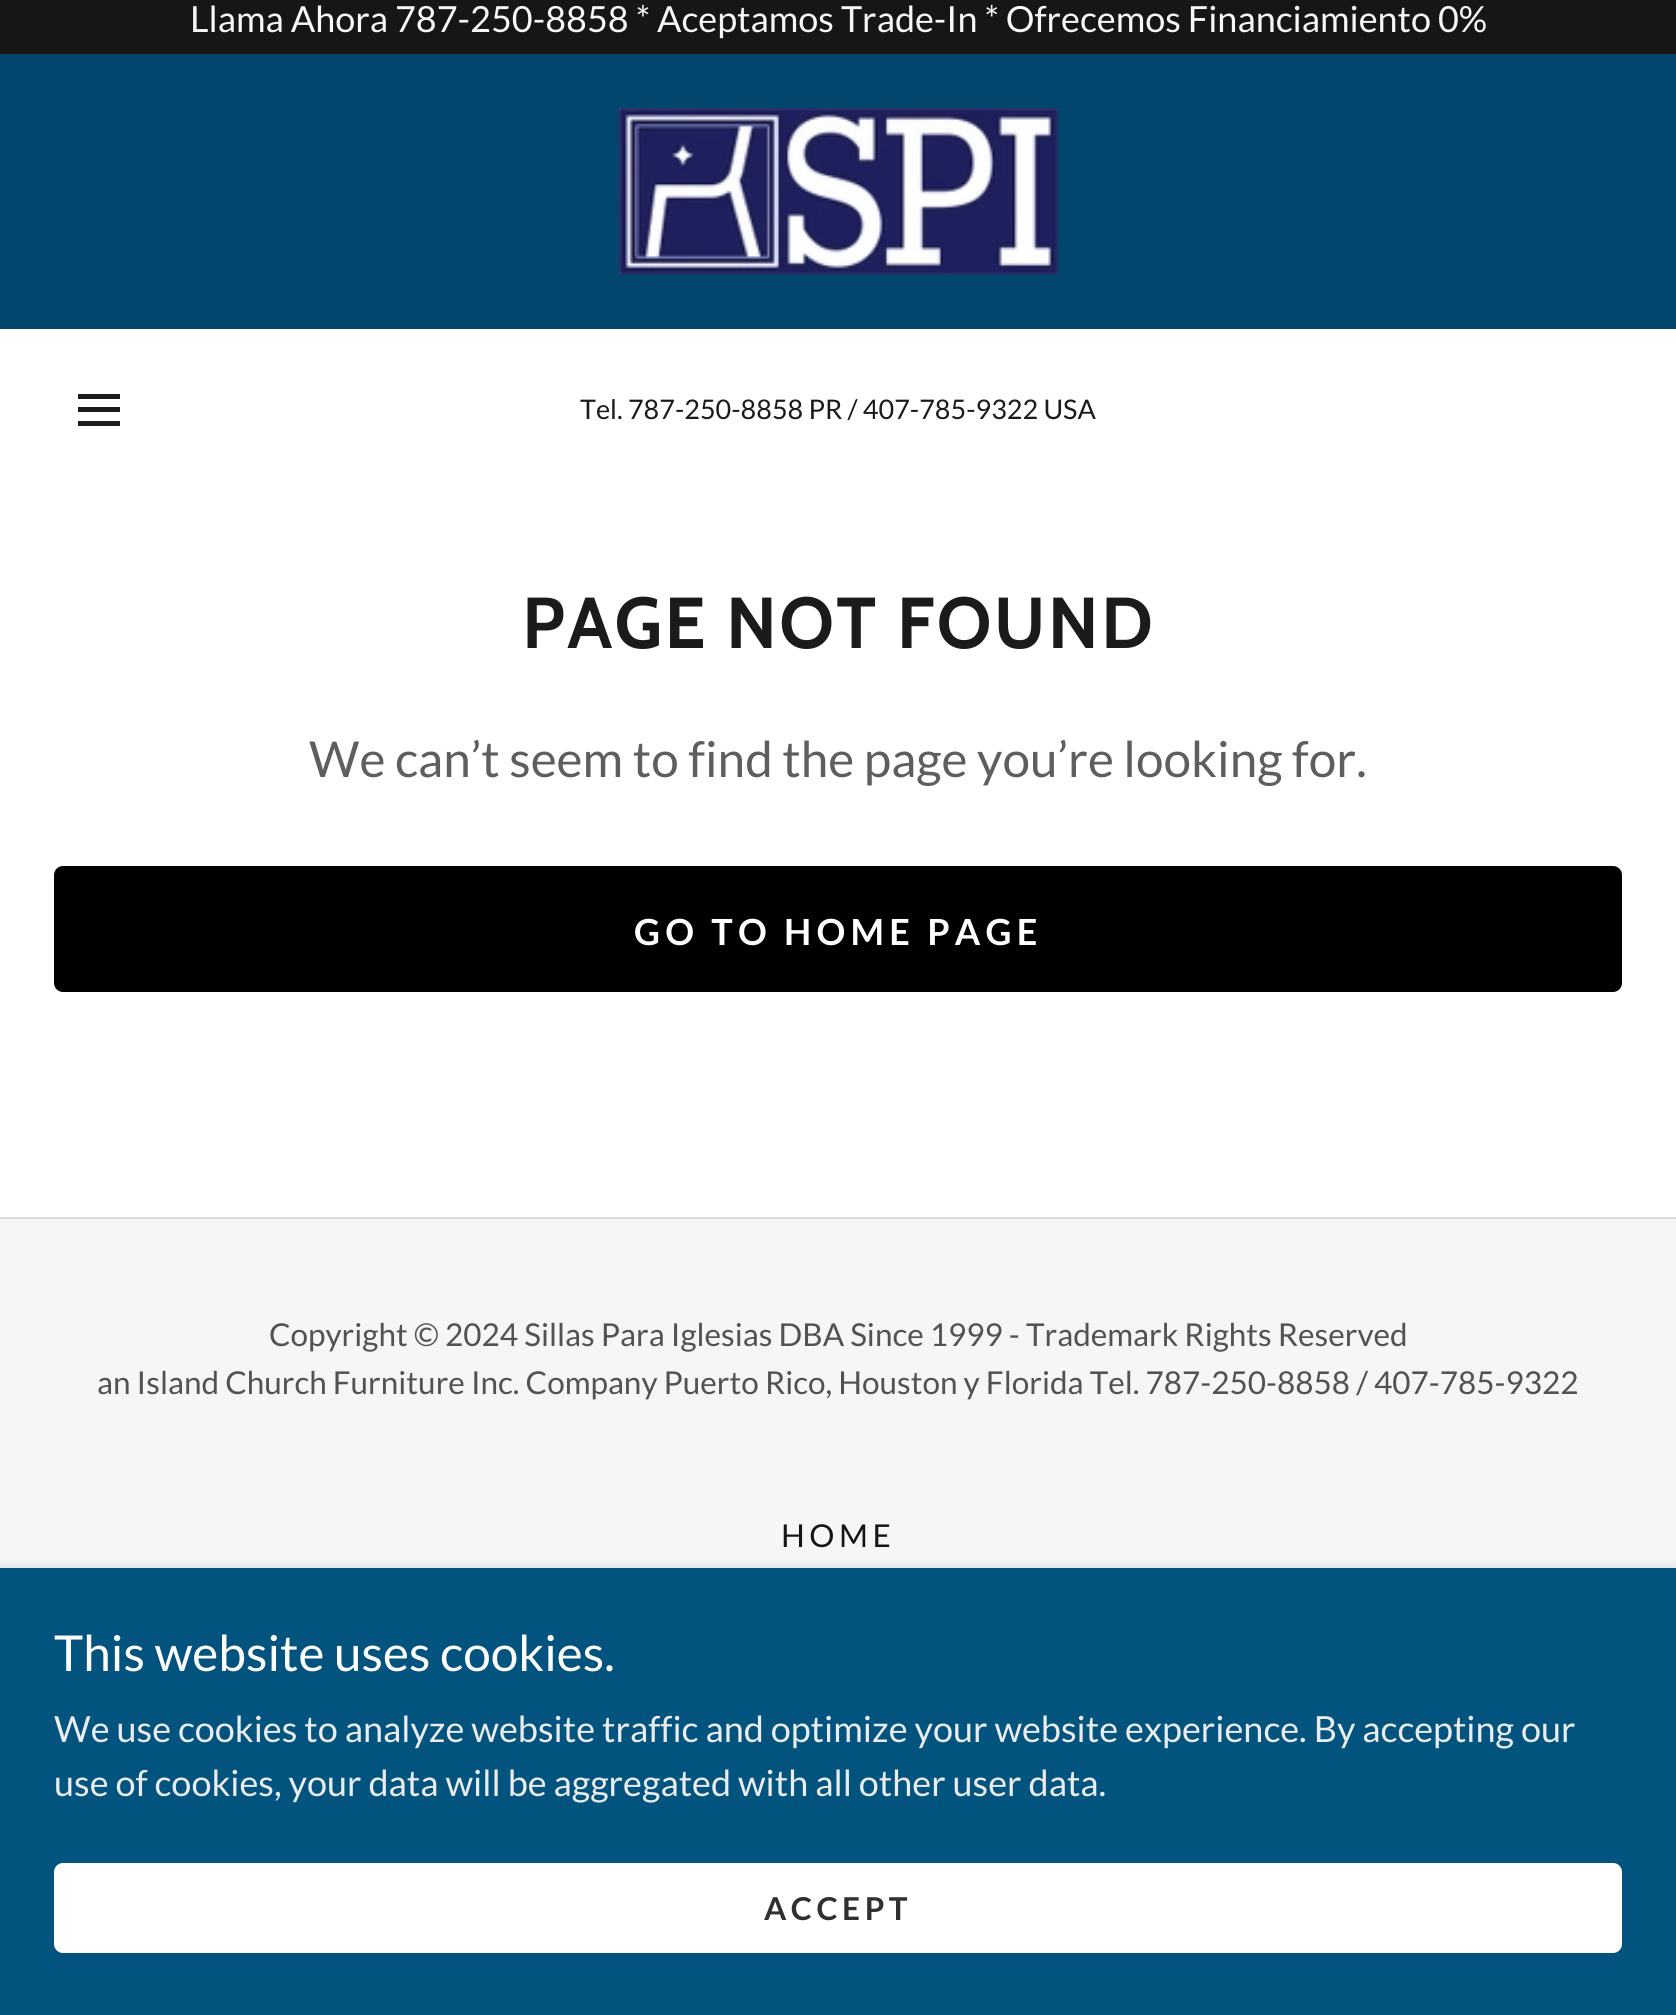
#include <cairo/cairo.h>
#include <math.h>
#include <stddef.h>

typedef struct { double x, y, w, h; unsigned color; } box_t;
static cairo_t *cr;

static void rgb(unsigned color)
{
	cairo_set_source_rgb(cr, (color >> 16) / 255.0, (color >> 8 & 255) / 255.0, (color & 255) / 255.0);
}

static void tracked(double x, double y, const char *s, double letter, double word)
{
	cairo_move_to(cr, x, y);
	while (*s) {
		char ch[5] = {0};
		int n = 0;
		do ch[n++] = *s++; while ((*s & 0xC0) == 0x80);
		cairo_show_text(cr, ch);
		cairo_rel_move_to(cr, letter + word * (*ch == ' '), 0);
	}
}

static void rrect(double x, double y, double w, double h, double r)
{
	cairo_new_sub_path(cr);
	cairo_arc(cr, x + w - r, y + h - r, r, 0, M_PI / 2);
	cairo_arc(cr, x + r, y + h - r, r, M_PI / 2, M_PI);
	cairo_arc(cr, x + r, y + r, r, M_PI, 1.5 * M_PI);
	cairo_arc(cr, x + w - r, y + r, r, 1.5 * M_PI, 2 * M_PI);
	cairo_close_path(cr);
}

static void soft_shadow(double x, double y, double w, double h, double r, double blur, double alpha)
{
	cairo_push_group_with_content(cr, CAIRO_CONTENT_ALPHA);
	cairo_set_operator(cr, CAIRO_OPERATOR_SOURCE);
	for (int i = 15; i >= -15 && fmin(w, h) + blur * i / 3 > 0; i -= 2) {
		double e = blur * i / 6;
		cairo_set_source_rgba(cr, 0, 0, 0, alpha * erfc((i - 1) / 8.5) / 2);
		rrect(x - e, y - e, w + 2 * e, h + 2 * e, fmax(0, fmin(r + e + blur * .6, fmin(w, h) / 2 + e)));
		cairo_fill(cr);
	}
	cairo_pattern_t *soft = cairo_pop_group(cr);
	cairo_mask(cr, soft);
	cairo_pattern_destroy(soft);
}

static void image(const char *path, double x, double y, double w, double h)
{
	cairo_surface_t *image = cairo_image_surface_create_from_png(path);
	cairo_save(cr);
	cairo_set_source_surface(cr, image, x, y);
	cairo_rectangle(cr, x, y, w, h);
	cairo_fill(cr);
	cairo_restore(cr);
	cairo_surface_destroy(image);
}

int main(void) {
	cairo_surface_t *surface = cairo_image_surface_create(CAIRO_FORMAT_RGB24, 1676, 2015);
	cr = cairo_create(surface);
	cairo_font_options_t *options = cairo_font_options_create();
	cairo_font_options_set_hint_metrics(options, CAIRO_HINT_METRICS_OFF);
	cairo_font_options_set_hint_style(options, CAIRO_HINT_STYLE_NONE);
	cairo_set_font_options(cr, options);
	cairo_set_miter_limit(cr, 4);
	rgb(0xf6f6f6);
	cairo_paint(cr);
	rgb(0x161616);
	cairo_rectangle(cr, 0, 0, 1676, 54);
	cairo_fill(cr);
	rgb(0x01476d);
	cairo_rectangle(cr, 0, 54, 1676, 275);
	cairo_fill(cr);
	image("img/1.png", 618, 108, 440, 167);
	{
		static const box_t items[] = {
			{0, 329, 1676, 888, 0xffffff},
			{78, 394, 42, 5, 0x1b1b1b},
			{78, 407, 42, 5, 0x1b1b1b},
			{78, 421, 42, 5, 0x1b1b1b},
		};
		for (size_t i = 0; i < sizeof items / sizeof *items; i++) {
			rgb(items[i].color);
			cairo_rectangle(cr, items[i].x, items[i].y, items[i].w, items[i].h);
			cairo_fill(cr);
		}
	}
	rgb(0x000000);
	rrect(54, 866, 1568, 126, 9);
	cairo_fill(cr);
	rgb(0xdadada);
	cairo_rectangle(cr, 0, 1217, 1676, 2);
	cairo_fill(cr);
	rgb(0x000000);
	soft_shadow(0, 1573, 1676, 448, 0, 7, 0.3);
	rgb(0x02537e);
	cairo_rectangle(cr, 0, 1568, 1676, 447);
	cairo_fill(cr);
	rgb(0xffffff);
	rrect(54, 1863, 1568, 90, 9);
	cairo_fill(cr);
	cairo_select_font_face(cr, "Lato", CAIRO_FONT_SLANT_NORMAL, CAIRO_FONT_WEIGHT_NORMAL);
	cairo_set_font_size(cr, 36);
	rgb(0xf7f7f7);
	cairo_move_to(cr, 190, 32);
	cairo_show_text(cr, "Llama Ahora 787-250-8858 * Aceptamos Trade-In * Ofrecemos Financiamiento 0%");
	cairo_set_font_size(cr, 27);
	rgb(0x1b1b1b);
	cairo_move_to(cr, 580, 419);
	cairo_show_text(cr, "Tel. 787-250-8858 PR / 407-785-9322 USA");
	cairo_select_font_face(cr, "Cabin", CAIRO_FONT_SLANT_NORMAL, CAIRO_FONT_WEIGHT_BOLD);
	cairo_set_font_size(cr, 72);
	tracked(522, 648, "PAGE NOT FOUND", 2.25, 0);
	cairo_select_font_face(cr, "Lato", CAIRO_FONT_SLANT_NORMAL, CAIRO_FONT_WEIGHT_NORMAL);
	cairo_set_font_size(cr, 49.5);
	rgb(0x5e5e5e);
	cairo_move_to(cr, 309, 777);
	cairo_show_text(cr, "We can’t seem to find the page you’re looking for.");
	cairo_select_font_face(cr, "Lato", CAIRO_FONT_SLANT_NORMAL, CAIRO_FONT_WEIGHT_BOLD);
	cairo_set_font_size(cr, 36);
	rgb(0xffffff);
	tracked(634, 945, "GO TO HOME PAGE", 5.2, 0);
	cairo_select_font_face(cr, "Lato", CAIRO_FONT_SLANT_NORMAL, CAIRO_FONT_WEIGHT_NORMAL);
	cairo_set_font_size(cr, 31.5);
	rgb(0x525252);
	cairo_move_to(cr, 269, 1346);
	cairo_show_text(cr, "Copyright © 2024 Sillas Para Iglesias DBA Since 1999 - Trademark Rights Reserved");
	cairo_move_to(cr, 97, 1394);
	cairo_show_text(cr, "an Island Church Furniture Inc. Company Puerto Rico, Houston y Florida Tel. 787-250-8858 / 407-785-9322");
	rgb(0x151515);
	tracked(781, 1547, "HOME", 4.5, 0);
	cairo_set_font_size(cr, 49.5);
	rgb(0xffffff);
	cairo_move_to(cr, 54, 1671);
	cairo_show_text(cr, "This website uses cookies.");
	cairo_set_font_size(cr, 36);
	rgb(0xebecee);
	cairo_move_to(cr, 54, 1742);
	cairo_show_text(cr, "We use cookies to analyze website traffic and optimize your website experience. By accepting our");
	cairo_move_to(cr, 54, 1796);
	cairo_show_text(cr, "use of cookies, your data will be aggregated with all other user data.");
	cairo_select_font_face(cr, "Lato", CAIRO_FONT_SLANT_NORMAL, CAIRO_FONT_WEIGHT_BOLD);
	cairo_set_font_size(cr, 31.5);
	rgb(0x303030);
	tracked(764, 1920, "ACCEPT", 4.5, 0);
	cairo_surface_write_to_png(surface, "page.png");
	cairo_font_options_destroy(options);
	cairo_destroy(cr);
	cairo_surface_destroy(surface);
	return 0;
}
